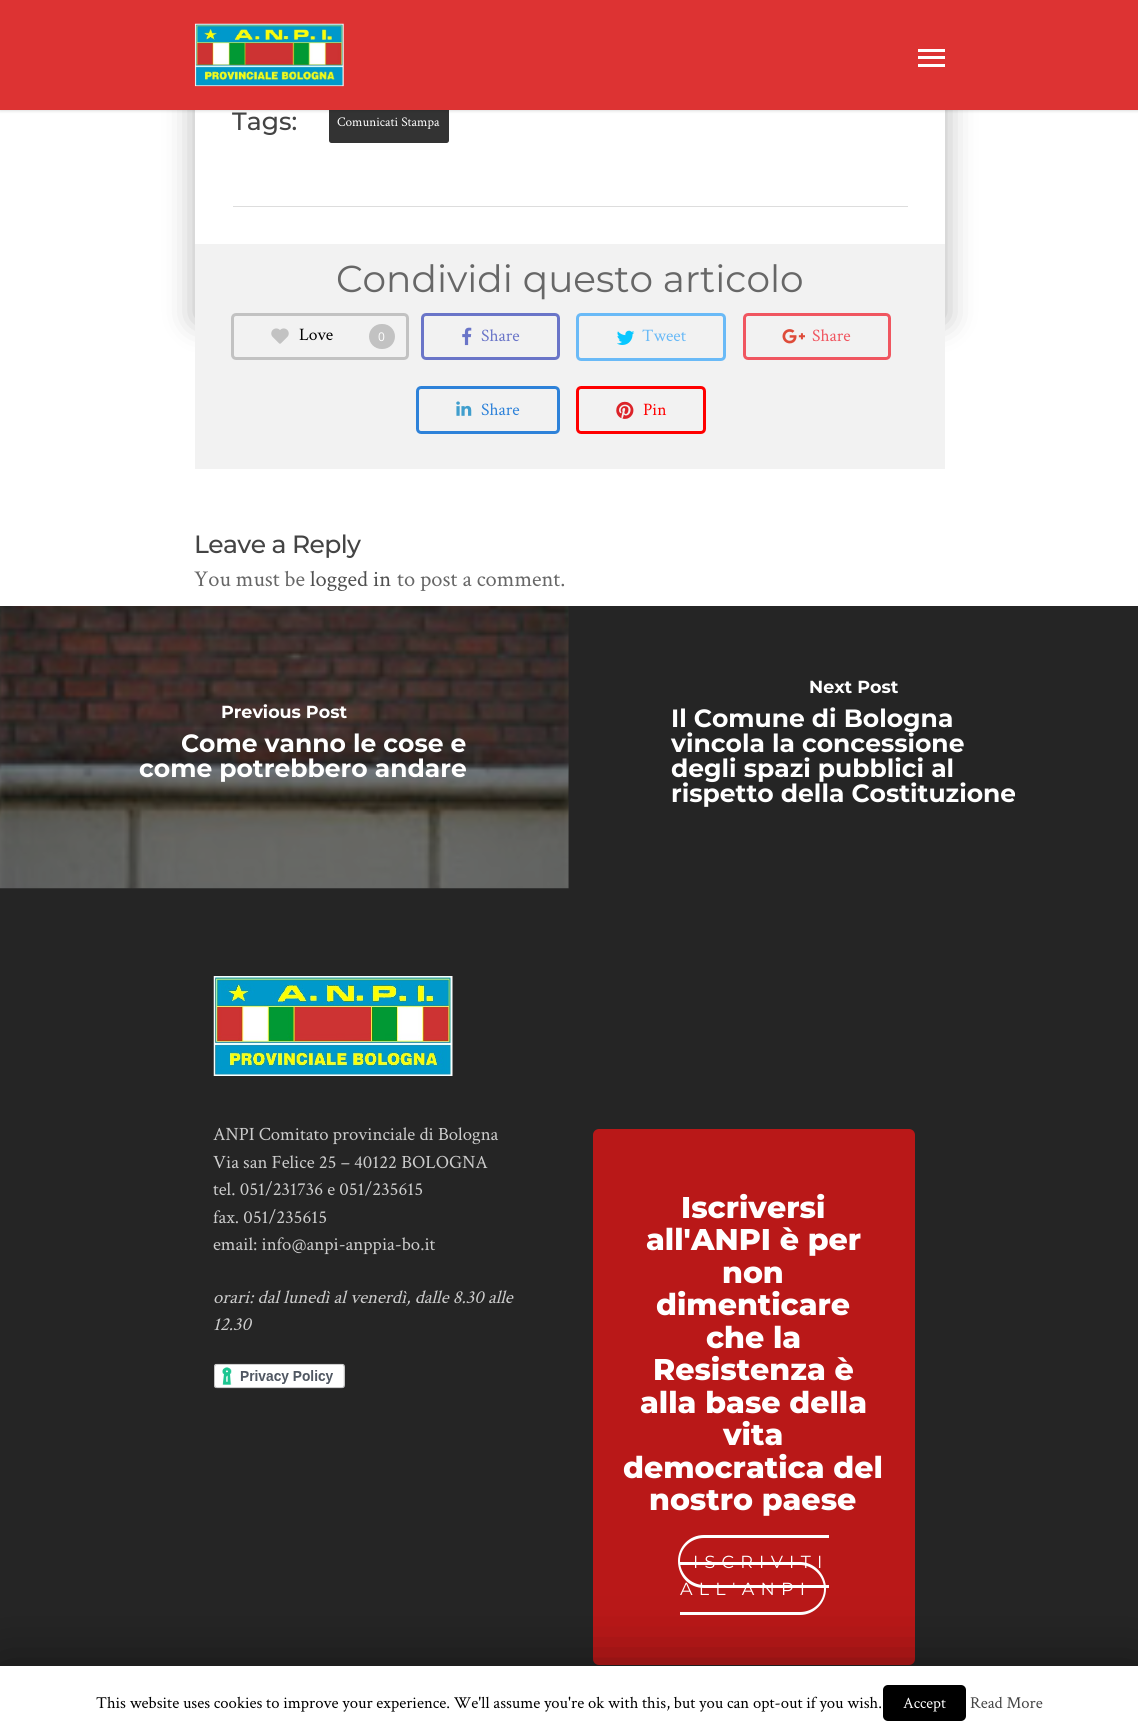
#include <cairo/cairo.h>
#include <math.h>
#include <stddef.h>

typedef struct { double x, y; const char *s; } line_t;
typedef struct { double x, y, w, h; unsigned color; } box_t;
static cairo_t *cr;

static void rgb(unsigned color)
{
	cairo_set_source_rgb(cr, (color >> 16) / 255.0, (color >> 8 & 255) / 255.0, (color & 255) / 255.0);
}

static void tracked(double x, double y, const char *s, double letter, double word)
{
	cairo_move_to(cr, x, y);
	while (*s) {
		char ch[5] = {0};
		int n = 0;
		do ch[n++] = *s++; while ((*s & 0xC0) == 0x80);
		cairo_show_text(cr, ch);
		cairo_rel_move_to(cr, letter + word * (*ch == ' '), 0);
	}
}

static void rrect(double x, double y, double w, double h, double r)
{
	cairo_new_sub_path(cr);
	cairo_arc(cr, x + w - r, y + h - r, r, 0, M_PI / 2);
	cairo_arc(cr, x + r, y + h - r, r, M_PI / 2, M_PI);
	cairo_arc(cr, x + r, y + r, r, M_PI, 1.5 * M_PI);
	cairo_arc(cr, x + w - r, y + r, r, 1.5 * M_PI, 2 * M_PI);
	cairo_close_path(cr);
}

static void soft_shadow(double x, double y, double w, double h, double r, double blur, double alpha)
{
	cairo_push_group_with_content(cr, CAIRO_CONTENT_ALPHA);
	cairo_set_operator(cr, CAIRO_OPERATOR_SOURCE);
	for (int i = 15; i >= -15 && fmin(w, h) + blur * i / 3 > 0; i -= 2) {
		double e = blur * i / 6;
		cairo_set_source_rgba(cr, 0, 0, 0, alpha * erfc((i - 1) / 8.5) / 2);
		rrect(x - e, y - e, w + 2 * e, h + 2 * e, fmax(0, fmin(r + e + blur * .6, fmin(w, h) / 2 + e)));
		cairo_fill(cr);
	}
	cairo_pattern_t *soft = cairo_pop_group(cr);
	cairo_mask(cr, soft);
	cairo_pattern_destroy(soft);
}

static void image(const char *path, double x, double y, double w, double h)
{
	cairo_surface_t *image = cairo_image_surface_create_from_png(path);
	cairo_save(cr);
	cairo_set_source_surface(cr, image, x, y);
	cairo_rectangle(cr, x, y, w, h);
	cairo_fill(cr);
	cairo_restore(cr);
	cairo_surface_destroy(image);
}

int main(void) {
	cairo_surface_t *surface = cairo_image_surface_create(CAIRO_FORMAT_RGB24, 1138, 1733);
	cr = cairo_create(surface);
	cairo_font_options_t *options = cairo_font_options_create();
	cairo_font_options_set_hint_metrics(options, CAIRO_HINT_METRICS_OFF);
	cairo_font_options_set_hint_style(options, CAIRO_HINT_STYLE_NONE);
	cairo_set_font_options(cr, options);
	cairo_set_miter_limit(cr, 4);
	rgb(0x252525);
	cairo_paint(cr);
	rgb(0xffffff);
	cairo_rectangle(cr, 0, 110, 1138, 496);
	cairo_fill(cr);
	rgb(0x000000);
	soft_shadow(195, -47, 750, 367, 0, 15.5, 0.3);
	rgb(0xffffff);
	cairo_rectangle(cr, 195, 110, 750, 134);
	cairo_fill(cr);
	rgb(0x333333);
	rrect(329, 103, 120, 40, 2.5);
	cairo_fill(cr);
	rgb(0x000000);
	soft_shadow(0, 0, 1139, 110, 0, 2, 0.22);
	rgb(0xdd3333);
	cairo_rectangle(cr, 0, 0, 1138, 110);
	cairo_fill(cr);
	image("img/1.png", 194, 23, 150, 64);
	{
		static const box_t items[] = {
			{918, 49, 27, 3, 0xffffff},
			{918, 64, 27, 3, 0xffffff},
			{918, 56, 27, 3, 0xffffff},
			{233, 206, 675, 1, 0xdddddd},
			{195, 244, 750, 225, 0xf2f2f2},
		};
		for (size_t i = 0; i < sizeof items / sizeof *items; i++) {
			rgb(items[i].color);
			cairo_rectangle(cr, items[i].x, items[i].y, items[i].w, items[i].h);
			cairo_fill(cr);
		}
	}
	rrect(232.5, 314.5, 175, 44, 3.5);
	rgb(0xc2c2c2);
	cairo_set_line_width(cr, 3);
	cairo_stroke(cr);
	image("img/2.png", 271, 328, 18, 16);
	rrect(369, 324, 26, 25, 12.5);
	cairo_fill(cr);
	rrect(422.5, 314.5, 136, 44, 3.5);
	rgb(0x6a75c8);
	cairo_stroke(cr);
	image("img/3.png", 462, 327, 10, 19);
	rrect(577.5, 314.5, 147, 45, 3.5);
	rgb(0x6abaf7);
	cairo_stroke(cr);
	image("img/4.png", 617, 330, 18, 15);
	rrect(744.5, 314.5, 145, 44, 3.5);
	rgb(0xf05660);
	cairo_stroke(cr);
	image("img/5.png", 782, 329, 23, 15);
	rrect(417.5, 387.5, 141, 45, 3.5);
	rgb(0x2e82d9);
	cairo_stroke(cr);
	image("img/6.png", 456, 401, 16, 15);
	rrect(577.5, 387.5, 127, 45, 3.5);
	rgb(0xff0000);
	cairo_stroke(cr);
	image("img/7.png", 616, 401, 18, 18);
	image("img/8.png", 0, 606, 569, 283);
	image("img/9.png", 213, 976, 240, 100);
	image("img/10.png", 214, 1363, 131, 26);
	rgb(0xb91818);
	rrect(593, 1129, 322, 536, 6);
	cairo_fill(cr);
	rgb(0xffffff);
	cairo_set_fill_rule(cr, CAIRO_FILL_RULE_EVEN_ODD);
	cairo_new_path(cr);
	cairo_move_to(cr, 704, 1535);
	cairo_line_to(cr, 829, 1535);
	cairo_line_to(cr, 829, 1588);
	cairo_line_to(cr, 704, 1588);
	cairo_curve_to(cr, 689, 1588, 678, 1576, 678, 1561);
	cairo_curve_to(cr, 678, 1547, 689, 1535, 704, 1535);
	cairo_close_path(cr);
	cairo_move_to(cr, 704, 1538);
	cairo_line_to(cr, 829, 1538);
	cairo_line_to(cr, 829, 1585);
	cairo_line_to(cr, 704, 1585);
	cairo_curve_to(cr, 691, 1585, 680, 1574, 680, 1561);
	cairo_curve_to(cr, 680, 1548, 691, 1538, 704, 1538);
	cairo_close_path(cr);
	cairo_fill(cr);
	cairo_new_path(cr);
	cairo_move_to(cr, 680, 1562);
	cairo_line_to(cr, 800, 1562);
	cairo_curve_to(cr, 814, 1562, 826, 1574, 826, 1589);
	cairo_curve_to(cr, 826, 1603, 814, 1615, 800, 1615);
	cairo_line_to(cr, 680, 1615);
	cairo_close_path(cr);
	cairo_move_to(cr, 680, 1565);
	cairo_line_to(cr, 800, 1565);
	cairo_curve_to(cr, 813, 1565, 824, 1576, 824, 1589);
	cairo_curve_to(cr, 824, 1602, 813, 1612, 800, 1612);
	cairo_line_to(cr, 680, 1612);
	cairo_close_path(cr);
	cairo_fill(cr);
	rgb(0x000000);
	soft_shadow(0, 1673, 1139, 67, 0, 31, 0.5);
	rgb(0xffffff);
	cairo_rectangle(cr, 0, 1666, 1138, 67);
	cairo_fill(cr);
	rgb(0x000000);
	rrect(883, 1685, 83, 36, 5);
	cairo_fill(cr);
	cairo_select_font_face(cr, "Montserrat Medium", CAIRO_FONT_SLANT_NORMAL, CAIRO_FONT_WEIGHT_NORMAL);
	cairo_set_font_size(cr, 25);
	rgb(0x444444);
	cairo_move_to(cr, 232, 130);
	cairo_show_text(cr, "Tags:");
	cairo_select_font_face(cr, "Crimson Text", CAIRO_FONT_SLANT_NORMAL, CAIRO_FONT_WEIGHT_NORMAL);
	cairo_set_font_size(cr, 13.25);
	rgb(0xffffff);
	cairo_move_to(cr, 337, 126);
	cairo_show_text(cr, "Comunicati Stampa");
	cairo_select_font_face(cr, "Montserrat", CAIRO_FONT_SLANT_NORMAL, CAIRO_FONT_WEIGHT_NORMAL);
	cairo_set_font_size(cr, 37.5);
	rgb(0x676767);
	cairo_move_to(cr, 336, 292);
	cairo_show_text(cr, "Condividi questo articolo");
	cairo_select_font_face(cr, "Crimson Text", CAIRO_FONT_SLANT_NORMAL, CAIRO_FONT_WEIGHT_NORMAL);
	cairo_set_font_size(cr, 17.5);
	rgb(0x000000);
	cairo_move_to(cr, 299, 340);
	cairo_show_text(cr, "Love");
	cairo_select_font_face(cr, "Open Sans", CAIRO_FONT_SLANT_NORMAL, CAIRO_FONT_WEIGHT_NORMAL);
	cairo_set_font_size(cr, 12);
	rgb(0xffffff);
	cairo_move_to(cr, 378, 341);
	cairo_show_text(cr, "0");
	cairo_select_font_face(cr, "Crimson Text", CAIRO_FONT_SLANT_NORMAL, CAIRO_FONT_WEIGHT_NORMAL);
	cairo_set_font_size(cr, 17.5);
	rgb(0x6a75c8);
	cairo_move_to(cr, 481, 341);
	cairo_show_text(cr, "Share");
	rgb(0x6abaf7);
	cairo_move_to(cr, 642, 341);
	cairo_show_text(cr, "Tweet");
	rgb(0xf05660);
	cairo_move_to(cr, 812, 341);
	cairo_show_text(cr, "Share");
	rgb(0x2e82d9);
	cairo_move_to(cr, 481, 415);
	cairo_show_text(cr, "Share");
	rgb(0xff0000);
	cairo_move_to(cr, 643, 415);
	cairo_show_text(cr, "Pin");
	cairo_select_font_face(cr, "Montserrat Medium", CAIRO_FONT_SLANT_NORMAL, CAIRO_FONT_WEIGHT_NORMAL);
	cairo_set_font_size(cr, 25);
	rgb(0x444444);
	tracked(194, 553, "Leave a Reply", -0.6, 0);
	cairo_select_font_face(cr, "Crimson Text", CAIRO_FONT_SLANT_NORMAL, CAIRO_FONT_WEIGHT_NORMAL);
	cairo_set_font_size(cr, 22.5);
	rgb(0x676767);
	cairo_move_to(cr, 194, 586);
	cairo_show_text(cr, "You must be");
	rgb(0x4f4f4f);
	cairo_move_to(cr, 310, 586);
	cairo_show_text(cr, "logged in");
	rgb(0x676767);
	cairo_move_to(cr, 397, 586);
	cairo_show_text(cr, "to post a comment.");
	cairo_select_font_face(cr, "Montserrat", CAIRO_FONT_SLANT_NORMAL, CAIRO_FONT_WEIGHT_BOLD);
	cairo_set_font_size(cr, 17.5);
	rgb(0xffffff);
	cairo_move_to(cr, 221, 718);
	cairo_show_text(cr, "Previous Post");
	cairo_set_font_size(cr, 25);
	cairo_move_to(cr, 181, 752);
	cairo_show_text(cr, "Come vanno le cose e");
	cairo_move_to(cr, 139, 777);
	cairo_show_text(cr, "come potrebbero andare");
	cairo_set_font_size(cr, 17.5);
	cairo_move_to(cr, 809, 693);
	cairo_show_text(cr, "Next Post");
	cairo_set_font_size(cr, 25);
	{
		static const line_t items[] = {
			{671, 727, "Il Comune di Bologna"},
			{671, 752, "vincola la concessione"},
			{671, 777, "degli spazi pubblici al"},
			{671, 802, "rispetto della Costituzione"},
		};
		for (size_t i = 0; i < sizeof items / sizeof *items; i++) {
			cairo_move_to(cr, items[i].x, items[i].y);
			cairo_show_text(cr, items[i].s);
		}
	}
	cairo_select_font_face(cr, "Crimson Text", CAIRO_FONT_SLANT_NORMAL, CAIRO_FONT_WEIGHT_NORMAL);
	cairo_set_font_size(cr, 18.75);
	rgb(0xcccccc);
	{
		static const line_t items[] = {
			{213, 1140, "ANPI Comitato provinciale di Bologna"},
			{213, 1168, "Via san Felice 25 – 40122 BOLOGNA"},
			{213, 1195, "tel. 051/231736 e 051/235615"},
			{213, 1223, "fax. 051/235615"},
			{213, 1250, "email: info@anpi-anppia-bo.it"},
		};
		for (size_t i = 0; i < sizeof items / sizeof *items; i++) {
			cairo_move_to(cr, items[i].x, items[i].y);
			cairo_show_text(cr, items[i].s);
		}
	}
	cairo_select_font_face(cr, "Crimson Text", CAIRO_FONT_SLANT_ITALIC, CAIRO_FONT_WEIGHT_NORMAL);
	cairo_move_to(cr, 213, 1303);
	cairo_show_text(cr, "orari: dal lunedì al venerdì, dalle 8.30 alle");
	cairo_move_to(cr, 213, 1330);
	cairo_show_text(cr, "12.30");
	cairo_select_font_face(cr, "Montserrat ExtraBold", CAIRO_FONT_SLANT_NORMAL, CAIRO_FONT_WEIGHT_NORMAL);
	cairo_set_font_size(cr, 30);
	rgb(0xffffff);
	{
		static const line_t items[] = {
			{681, 1218, "Iscriversi"},
			{646, 1250, "all'ANPI è per"},
			{722, 1283, "non"},
			{656, 1315, "dimenticare"},
			{706, 1348, "che la"},
			{653, 1380, "Resistenza è"},
			{640, 1413, "alla base della"},
			{723, 1445, "vita"},
			{623, 1478, "democratica del"},
			{649, 1510, "nostro paese"},
		};
		for (size_t i = 0; i < sizeof items / sizeof *items; i++) {
			cairo_move_to(cr, items[i].x, items[i].y);
			cairo_show_text(cr, items[i].s);
		}
	}
	cairo_select_font_face(cr, "Montserrat", CAIRO_FONT_SLANT_NORMAL, CAIRO_FONT_WEIGHT_NORMAL);
	cairo_set_font_size(cr, 17.5);
	tracked(693, 1568, "ISCRIVITI", 6.25, 0);
	tracked(680, 1595, "ALL'ANPI", 6.25, 0);
	cairo_select_font_face(cr, "Crimson Text", CAIRO_FONT_SLANT_NORMAL, CAIRO_FONT_WEIGHT_NORMAL);
	cairo_set_font_size(cr, 16.65);
	rgb(0x000000);
	cairo_move_to(cr, 96, 1708);
	cairo_show_text(cr, "This website uses cookies to improve your experience. We'll assume you're ok with this, but you can opt-out if you wish.");
	cairo_set_font_size(cr, 16);
	rgb(0xffffff);
	cairo_move_to(cr, 903, 1708);
	cairo_show_text(cr, "Accept");
	cairo_set_font_size(cr, 16.65);
	rgb(0x444444);
	cairo_move_to(cr, 970, 1708);
	cairo_show_text(cr, "Read More");
	cairo_surface_write_to_png(surface, "page.png");
	cairo_font_options_destroy(options);
	cairo_destroy(cr);
	cairo_surface_destroy(surface);
	return 0;
}
